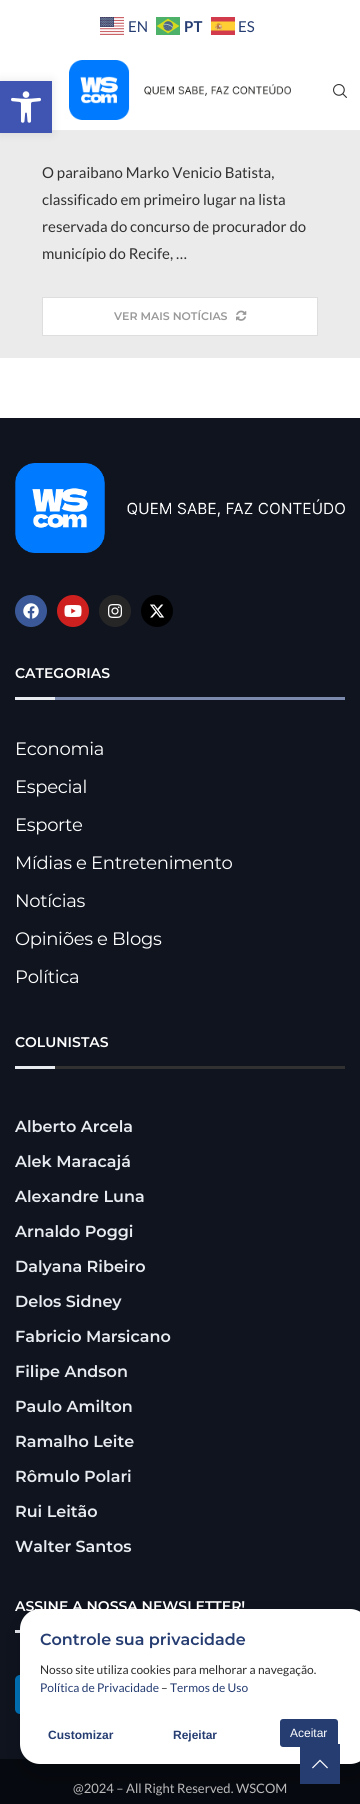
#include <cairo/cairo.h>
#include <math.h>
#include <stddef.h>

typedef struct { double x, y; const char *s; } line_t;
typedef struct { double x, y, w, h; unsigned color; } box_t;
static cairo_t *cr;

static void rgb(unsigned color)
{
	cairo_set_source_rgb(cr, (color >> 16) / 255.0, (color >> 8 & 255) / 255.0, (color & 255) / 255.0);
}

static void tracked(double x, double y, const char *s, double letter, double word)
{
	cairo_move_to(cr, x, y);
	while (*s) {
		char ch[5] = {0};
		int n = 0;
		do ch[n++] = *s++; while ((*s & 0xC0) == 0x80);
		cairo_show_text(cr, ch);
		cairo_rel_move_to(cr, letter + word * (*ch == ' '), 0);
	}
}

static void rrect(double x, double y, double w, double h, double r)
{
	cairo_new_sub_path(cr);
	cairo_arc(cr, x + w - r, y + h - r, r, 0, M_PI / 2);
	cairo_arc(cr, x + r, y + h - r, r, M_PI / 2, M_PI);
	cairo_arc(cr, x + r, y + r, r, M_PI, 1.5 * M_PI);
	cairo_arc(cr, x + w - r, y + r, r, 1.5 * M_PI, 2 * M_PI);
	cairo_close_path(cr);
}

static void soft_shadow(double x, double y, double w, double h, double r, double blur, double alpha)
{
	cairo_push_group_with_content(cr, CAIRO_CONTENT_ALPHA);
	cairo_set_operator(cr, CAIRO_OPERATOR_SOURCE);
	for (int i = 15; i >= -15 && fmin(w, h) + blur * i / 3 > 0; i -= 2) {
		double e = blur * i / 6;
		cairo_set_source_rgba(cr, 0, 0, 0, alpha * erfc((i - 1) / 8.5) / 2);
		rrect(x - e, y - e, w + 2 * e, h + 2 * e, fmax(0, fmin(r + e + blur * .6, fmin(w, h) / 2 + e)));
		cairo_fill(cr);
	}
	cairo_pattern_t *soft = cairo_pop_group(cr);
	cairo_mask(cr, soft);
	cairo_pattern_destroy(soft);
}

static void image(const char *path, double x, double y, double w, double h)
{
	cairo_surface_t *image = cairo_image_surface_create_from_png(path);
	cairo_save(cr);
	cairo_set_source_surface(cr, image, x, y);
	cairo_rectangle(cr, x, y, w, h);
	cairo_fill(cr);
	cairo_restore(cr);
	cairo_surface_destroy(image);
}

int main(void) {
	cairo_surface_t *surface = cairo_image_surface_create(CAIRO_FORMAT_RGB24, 360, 1804);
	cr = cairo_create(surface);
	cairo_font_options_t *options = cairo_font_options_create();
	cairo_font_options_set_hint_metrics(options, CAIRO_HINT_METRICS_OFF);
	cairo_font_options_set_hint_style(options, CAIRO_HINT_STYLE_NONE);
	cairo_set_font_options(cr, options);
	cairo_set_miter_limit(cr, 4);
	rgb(0xffffff);
	cairo_paint(cr);
	image("img/1.png", 100, 17, 24, 18);
	image("img/2.png", 156, 17, 24, 18);
	image("img/3.png", 211, 17, 24, 18);
	rgb(0xececec);
	cairo_rectangle(cr, 52, 130, 308, 1);
	cairo_fill(cr);
	image("img/4.png", 69, 60, 222, 60);
	image("img/5.png", 333, 84, 14, 14);
	rgb(0xebebeb);
	cairo_rectangle(cr, 0, 131, 360, 227);
	cairo_fill(cr);
	rgb(0xffffff);
	cairo_rectangle(cr, 42.5, 297.5, 275, 38);
	cairo_fill_preserve(cr);
	rgb(0xdedede);
	cairo_set_line_width(cr, 1);
	cairo_stroke(cr);
	image("img/6.png", 236, 310, 11, 11);
	rgb(0x0f141f);
	cairo_rectangle(cr, 0, 418, 360, 1341);
	cairo_fill(cr);
	image("img/7.png", 15, 463, 330, 90);
	rgb(0x3b5998);
	cairo_arc(cr, 31, 611, 16, 0, 2 * M_PI);
	cairo_fill(cr);
	image("img/8.png", 23, 603, 16, 16);
	rgb(0xcd201f);
	cairo_arc(cr, 73, 611, 16, 0, 2 * M_PI);
	cairo_fill(cr);
	image("img/9.png", 64, 605, 18, 12);
	rgb(0x262626);
	cairo_arc(cr, 115, 611, 16, 0, 2 * M_PI);
	cairo_fill(cr);
	image("img/10.png", 108, 604, 14, 14);
	rgb(0x000000);
	cairo_arc(cr, 157, 611, 16, 0, 2 * M_PI);
	cairo_fill(cr);
	image("img/11.png", 150, 604, 15, 14);
	{
		static const box_t items[] = {
			{55, 697, 290, 3, 0x7b8aad},
			{15, 697, 40, 3, 0xe8ebf0},
			{55, 1066, 290, 3, 0x313131},
			{15, 1066, 40, 3, 0xe8ebf0},
			{15, 1630, 5, 3, 0xe8ebf0},
		};
		for (size_t i = 0; i < sizeof items / sizeof *items; i++) {
			rgb(items[i].color);
			cairo_rectangle(cr, items[i].x, items[i].y, items[i].w, items[i].h);
			cairo_fill(cr);
		}
	}
	rgb(0x0075bd);
	rrect(15, 1675, 330, 39, 5);
	cairo_fill(cr);
	rgb(0x06090f);
	cairo_rectangle(cr, 0, 1759, 360, 45);
	cairo_fill(cr);
	rgb(0x000000);
	soft_shadow(19, 1614, 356, 161, 23, 11.5, 0.2);
	rgb(0xffffff);
	rrect(20, 1609, 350, 155, 20);
	cairo_fill(cr);
	rgb(0x263d72);
	rrect(280, 1719, 58, 28, 3);
	cairo_fill(cr);
	cairo_rectangle(cr, 300, 1744, 40, 40);
	cairo_fill(cr);
	image("img/12.png", 312, 1759, 16, 10);
	rgb(0x000000);
	soft_shadow(0, 81, 52, 52, 0, 5, 0.1);
	rgb(0x4054b2);
	cairo_rectangle(cr, 0, 81, 52, 52);
	cairo_fill(cr);
	image("img/13.png", 11, 91, 30, 32);
	cairo_select_font_face(cr, "Lato", CAIRO_FONT_SLANT_NORMAL, CAIRO_FONT_WEIGHT_NORMAL);
	cairo_set_font_size(cr, 15);
	rgb(0x263d72);
	cairo_move_to(cr, 128, 32);
	cairo_show_text(cr, "EN");
	cairo_select_font_face(cr, "Lato", CAIRO_FONT_SLANT_NORMAL, CAIRO_FONT_WEIGHT_BOLD);
	cairo_move_to(cr, 184, 32);
	cairo_show_text(cr, "PT");
	cairo_select_font_face(cr, "Lato", CAIRO_FONT_SLANT_NORMAL, CAIRO_FONT_WEIGHT_NORMAL);
	cairo_move_to(cr, 238, 32);
	cairo_show_text(cr, "ES");
	rgb(0x313131);
	{
		static const line_t items[] = {
			{42, 178, "O paraibano Marko Venicio Batista,"},
			{42, 205, "classificado em primeiro lugar na lista"},
			{42, 232, "reservada do concurso de procurador do"},
			{42, 259, "município do Recife, …"},
		};
		for (size_t i = 0; i < sizeof items / sizeof *items; i++) {
			cairo_move_to(cr, items[i].x, items[i].y);
			cairo_show_text(cr, items[i].s);
		}
	}
	cairo_select_font_face(cr, "Montserrat SemiBold", CAIRO_FONT_SLANT_NORMAL, CAIRO_FONT_WEIGHT_NORMAL);
	cairo_set_font_size(cr, 11);
	rgb(0x999999);
	cairo_move_to(cr, 114, 320);
	cairo_show_text(cr, "VER MAIS NOTÍCIAS");
	cairo_set_font_size(cr, 14);
	rgb(0xffffff);
	cairo_move_to(cr, 15, 678);
	cairo_show_text(cr, "CATEGORIAS");
	cairo_select_font_face(cr, "Montserrat", CAIRO_FONT_SLANT_NORMAL, CAIRO_FONT_WEIGHT_NORMAL);
	cairo_set_font_size(cr, 18);
	{
		static const line_t items[] = {
			{15, 755, "Economia"},
			{15, 793, "Especial"},
			{15, 831, "Esporte"},
			{15, 869, "Mídias e Entretenimento"},
			{15, 907, "Notícias"},
			{15, 945, "Opiniões e Blogs"},
			{15, 983, "Política"},
		};
		for (size_t i = 0; i < sizeof items / sizeof *items; i++) {
			tracked(items[i].x, items[i].y, items[i].s, -0.3, 0);
		}
	}
	cairo_select_font_face(cr, "Montserrat SemiBold", CAIRO_FONT_SLANT_NORMAL, CAIRO_FONT_WEIGHT_NORMAL);
	cairo_set_font_size(cr, 14);
	cairo_move_to(cr, 15, 1047);
	cairo_show_text(cr, "COLUNISTAS");
	cairo_set_font_size(cr, 16);
	rgb(0xe8ebf0);
	{
		static const line_t items[] = {
			{15, 1132, "Alberto Arcela"},
			{15, 1167, "Alek Maracajá"},
			{15, 1202, "Alexandre Luna"},
			{15, 1237, "Arnaldo Poggi"},
			{15, 1272, "Dalyana Ribeiro"},
			{15, 1307, "Delos Sidney"},
			{15, 1342, "Fabricio Marsicano"},
			{15, 1377, "Filipe Andson"},
			{15, 1412, "Paulo Amilton"},
			{15, 1447, "Ramalho Leite"},
			{15, 1482, "Rômulo Polari"},
			{15, 1517, "Rui Leitão"},
			{15, 1552, "Walter Santos"},
		};
		for (size_t i = 0; i < sizeof items / sizeof *items; i++) {
			cairo_move_to(cr, items[i].x, items[i].y);
			cairo_show_text(cr, items[i].s);
		}
	}
	cairo_set_font_size(cr, 14);
	rgb(0xffffff);
	cairo_move_to(cr, 15, 1611);
	cairo_show_text(cr, "ASSINE A NOSSA NEWSLETTER!");
	cairo_select_font_face(cr, "Lato", CAIRO_FONT_SLANT_NORMAL, CAIRO_FONT_WEIGHT_NORMAL);
	cairo_set_font_size(cr, 13);
	rgb(0xbbbbbb);
	cairo_move_to(cr, 73, 1793);
	cairo_show_text(cr, "@2024 – All Right Reserved. WSCOM");
	cairo_select_font_face(cr, "Montserrat SemiBold", CAIRO_FONT_SLANT_NORMAL, CAIRO_FONT_WEIGHT_NORMAL);
	cairo_set_font_size(cr, 16);
	rgb(0x263d72);
	cairo_move_to(cr, 40, 1645);
	cairo_show_text(cr, "Controle sua privacidade");
	cairo_select_font_face(cr, "Lato", CAIRO_FONT_SLANT_NORMAL, CAIRO_FONT_WEIGHT_NORMAL);
	cairo_set_font_size(cr, 12);
	rgb(0x2b2b2c);
	cairo_move_to(cr, 40, 1674);
	cairo_show_text(cr, "Nosso site utiliza cookies para melhorar a navegação.");
	rgb(0x263d72);
	cairo_move_to(cr, 40, 1692);
	cairo_show_text(cr, "Política de Privacidade");
	rgb(0x2b2b2c);
	cairo_move_to(cr, 161, 1692);
	cairo_show_text(cr, "–");
	rgb(0x263d72);
	cairo_move_to(cr, 170, 1692);
	cairo_show_text(cr, "Termos de Uso");
	cairo_select_font_face(cr, "Liberation Sans", CAIRO_FONT_SLANT_NORMAL, CAIRO_FONT_WEIGHT_BOLD);
	cairo_move_to(cr, 48, 1739);
	cairo_show_text(cr, "Customizar");
	cairo_move_to(cr, 173, 1739);
	cairo_show_text(cr, "Rejeitar");
	cairo_select_font_face(cr, "Liberation Sans", CAIRO_FONT_SLANT_NORMAL, CAIRO_FONT_WEIGHT_NORMAL);
	rgb(0xffffff);
	cairo_move_to(cr, 290, 1737);
	cairo_show_text(cr, "Aceitar");
	cairo_surface_write_to_png(surface, "page.png");
	cairo_font_options_destroy(options);
	cairo_destroy(cr);
	cairo_surface_destroy(surface);
	return 0;
}
